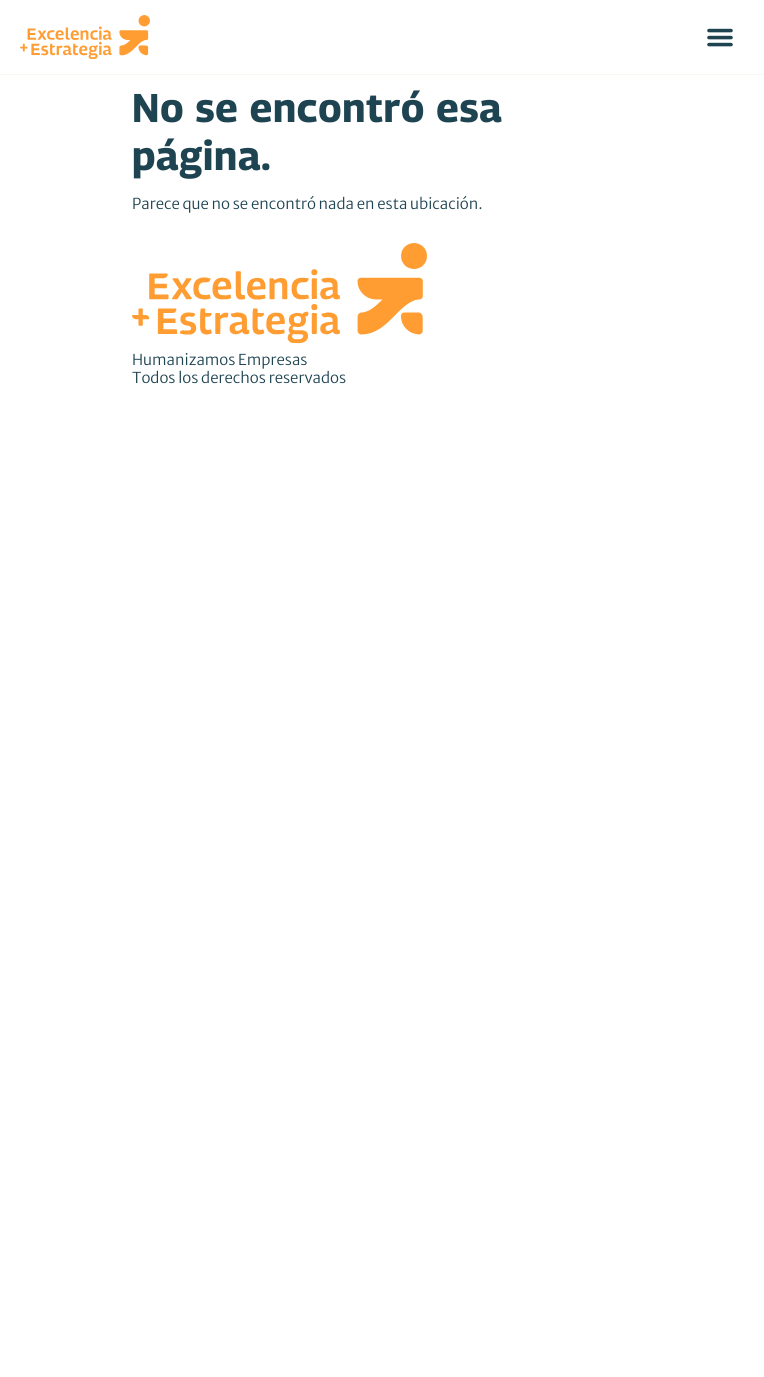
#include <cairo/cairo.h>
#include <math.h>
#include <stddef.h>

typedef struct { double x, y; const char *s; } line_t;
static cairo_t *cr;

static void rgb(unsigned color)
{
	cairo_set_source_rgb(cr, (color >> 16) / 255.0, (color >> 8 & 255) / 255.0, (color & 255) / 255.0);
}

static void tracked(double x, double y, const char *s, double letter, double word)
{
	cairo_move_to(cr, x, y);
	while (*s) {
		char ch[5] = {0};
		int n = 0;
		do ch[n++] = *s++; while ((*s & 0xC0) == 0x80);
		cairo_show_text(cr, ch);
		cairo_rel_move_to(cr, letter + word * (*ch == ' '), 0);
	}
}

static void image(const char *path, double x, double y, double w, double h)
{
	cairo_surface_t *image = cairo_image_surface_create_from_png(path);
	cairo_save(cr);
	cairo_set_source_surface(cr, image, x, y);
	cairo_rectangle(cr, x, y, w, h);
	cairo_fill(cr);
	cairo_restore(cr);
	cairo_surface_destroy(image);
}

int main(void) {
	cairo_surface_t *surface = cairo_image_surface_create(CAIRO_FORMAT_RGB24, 764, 1377);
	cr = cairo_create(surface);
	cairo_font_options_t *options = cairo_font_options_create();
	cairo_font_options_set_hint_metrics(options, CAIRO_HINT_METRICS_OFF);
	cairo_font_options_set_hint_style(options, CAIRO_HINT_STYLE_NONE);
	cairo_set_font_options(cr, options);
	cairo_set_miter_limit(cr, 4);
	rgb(0xffffff);
	cairo_paint(cr);
	rgb(0xf8f7f2);
	cairo_rectangle(cr, 0, 74, 764, 1);
	cairo_fill(cr);
	image("img/1.png", 20, 15, 130, 44);
	image("img/2.png", 707, 28, 26, 19);
	image("img/3.png", 132, 243, 295, 100);
	cairo_select_font_face(cr, "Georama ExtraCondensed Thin", CAIRO_FONT_SLANT_NORMAL, CAIRO_FONT_WEIGHT_BOLD);
	cairo_set_font_size(cr, 40);
	rgb(0x1e4351);
	tracked(132, 122, "No se encontró esa", 0.75, 0);
	tracked(132, 170, "página.", 0.75, 0);
	cairo_select_font_face(cr, "Merriweather Sans Light", CAIRO_FONT_SLANT_NORMAL, CAIRO_FONT_WEIGHT_NORMAL);
	cairo_set_font_size(cr, 15);
	{
		static const line_t items[] = {
			{132, 209, "Parece que no se encontró nada en esta ubicación."},
			{132, 365, "Humanizamos Empresas"},
			{132, 383, "Todos los derechos reservados"},
		};
		for (size_t i = 0; i < sizeof items / sizeof *items; i++) {
			cairo_move_to(cr, items[i].x, items[i].y);
			cairo_show_text(cr, items[i].s);
		}
	}
	cairo_surface_write_to_png(surface, "page.png");
	cairo_font_options_destroy(options);
	cairo_destroy(cr);
	cairo_surface_destroy(surface);
	return 0;
}
